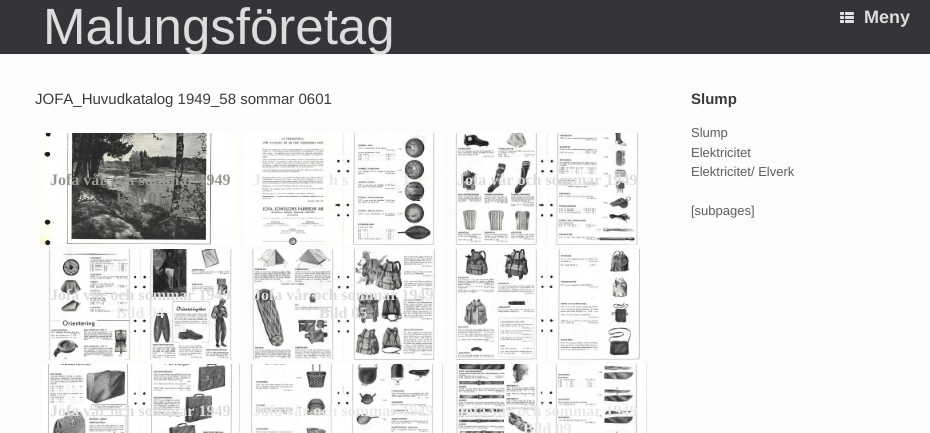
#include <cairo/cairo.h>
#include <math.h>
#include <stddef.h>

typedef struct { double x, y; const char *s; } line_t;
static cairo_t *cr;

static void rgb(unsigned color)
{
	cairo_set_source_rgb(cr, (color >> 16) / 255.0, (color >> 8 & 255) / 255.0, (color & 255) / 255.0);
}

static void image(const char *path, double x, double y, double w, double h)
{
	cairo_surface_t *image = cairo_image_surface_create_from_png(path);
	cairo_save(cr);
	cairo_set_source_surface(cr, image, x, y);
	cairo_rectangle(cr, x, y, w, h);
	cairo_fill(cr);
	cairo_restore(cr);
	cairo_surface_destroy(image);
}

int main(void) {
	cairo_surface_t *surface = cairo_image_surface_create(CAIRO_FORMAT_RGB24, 930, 433);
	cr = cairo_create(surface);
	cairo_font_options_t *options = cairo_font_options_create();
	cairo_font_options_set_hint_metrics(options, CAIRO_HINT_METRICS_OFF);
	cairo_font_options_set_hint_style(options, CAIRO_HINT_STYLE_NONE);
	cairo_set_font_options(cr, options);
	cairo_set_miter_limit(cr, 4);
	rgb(0xfcfcfc);
	cairo_paint(cr);
	rgb(0x343538);
	cairo_rectangle(cr, 0, 0, 930, 54);
	cairo_fill(cr);
	image("img/1.png", 840, 12, 14, 11);
	image("img/2.png", 40, 133, 200, 112);
	image("img/3.png", 244, 133, 199, 112);
	image("img/4.png", 455, 133, 184, 112);
	image("img/5.png", 48, 249, 192, 111);
	image("img/6.png", 252, 249, 191, 111);
	image("img/7.png", 455, 249, 185, 111);
	image("img/8.png", 40, 364, 200, 69);
	image("img/9.png", 251, 364, 192, 69);
	image("img/10.png", 456, 364, 191, 69);
	cairo_select_font_face(cr, "Liberation Sans", CAIRO_FONT_SLANT_NORMAL, CAIRO_FONT_WEIGHT_NORMAL);
	cairo_set_font_size(cr, 51);
	rgb(0xdedddd);
	cairo_move_to(cr, 43, 44);
	cairo_show_text(cr, "Malungsföretag");
	cairo_select_font_face(cr, "Liberation Sans", CAIRO_FONT_SLANT_NORMAL, CAIRO_FONT_WEIGHT_BOLD);
	cairo_set_font_size(cr, 18);
	cairo_move_to(cr, 864, 23);
	cairo_show_text(cr, "Meny");
	cairo_select_font_face(cr, "Liberation Sans", CAIRO_FONT_SLANT_NORMAL, CAIRO_FONT_WEIGHT_NORMAL);
	cairo_set_font_size(cr, 15);
	rgb(0x3b3b3b);
	cairo_move_to(cr, 35, 104);
	cairo_show_text(cr, "JOFA_Huvudkatalog 1949_58 sommar 0601");
	cairo_select_font_face(cr, "Liberation Serif", CAIRO_FONT_SLANT_NORMAL, CAIRO_FONT_WEIGHT_BOLD);
	cairo_set_font_size(cr, 16);
	rgb(0x989895);
	cairo_move_to(cr, 50, 185);
	cairo_show_text(cr, "Jofa vår och sommar 1949");
	rgb(0x7a7975);
	cairo_move_to(cr, 116, 203);
	cairo_show_text(cr, "Bild 01");
	rgb(0xe9e9e8);
	{
		static const line_t items[] = {
			{253, 185, "J"},
			{329, 185, "h s"},
			{402, 185, "1"},
		};
		for (size_t i = 0; i < sizeof items / sizeof *items; i++) {
			cairo_move_to(cr, items[i].x, items[i].y);
			cairo_show_text(cr, items[i].s);
		}
	}
	rgb(0xdedddd);
	cairo_move_to(cr, 457, 185);
	cairo_show_text(cr, "Jofa vår och sommar 1949");
	cairo_move_to(cr, 50, 300);
	cairo_show_text(cr, "Jofa vår och sommar 1949");
	rgb(0xe9e9e8);
	cairo_move_to(cr, 116, 318);
	cairo_show_text(cr, "Bild 04");
	rgb(0xdedddd);
	{
		static const line_t items[] = {
			{253, 300, "Jofa vår och sommar 1949"},
			{319, 318, "Bild 05"},
			{50, 416, "Jofa vår och sommar 1949"},
		};
		for (size_t i = 0; i < sizeof items / sizeof *items; i++) {
			cairo_move_to(cr, items[i].x, items[i].y);
			cairo_show_text(cr, items[i].s);
		}
	}
	rgb(0xe9e9e8);
	{
		static const line_t items[] = {
			{253, 416, "Jofa vår och sommar 1949"},
			{457, 416, "Jofa vår och sommar 1949"},
			{523, 434, "Bild 09"},
		};
		for (size_t i = 0; i < sizeof items / sizeof *items; i++) {
			cairo_move_to(cr, items[i].x, items[i].y);
			cairo_show_text(cr, items[i].s);
		}
	}
	cairo_select_font_face(cr, "Liberation Sans", CAIRO_FONT_SLANT_NORMAL, CAIRO_FONT_WEIGHT_BOLD);
	cairo_set_font_size(cr, 15);
	rgb(0x3b3b3b);
	cairo_move_to(cr, 691, 104);
	cairo_show_text(cr, "Slump");
	cairo_select_font_face(cr, "Liberation Sans", CAIRO_FONT_SLANT_NORMAL, CAIRO_FONT_WEIGHT_NORMAL);
	cairo_set_font_size(cr, 13);
	rgb(0x5e5e5e);
	{
		static const line_t items[] = {
			{691, 137, "Slump"},
			{691, 157, "Elektricitet"},
			{691, 176, "Elektricitet/ Elverk"},
			{691, 215, "[subpages]"},
		};
		for (size_t i = 0; i < sizeof items / sizeof *items; i++) {
			cairo_move_to(cr, items[i].x, items[i].y);
			cairo_show_text(cr, items[i].s);
		}
	}
	cairo_surface_write_to_png(surface, "page.png");
	cairo_font_options_destroy(options);
	cairo_destroy(cr);
	cairo_surface_destroy(surface);
	return 0;
}
